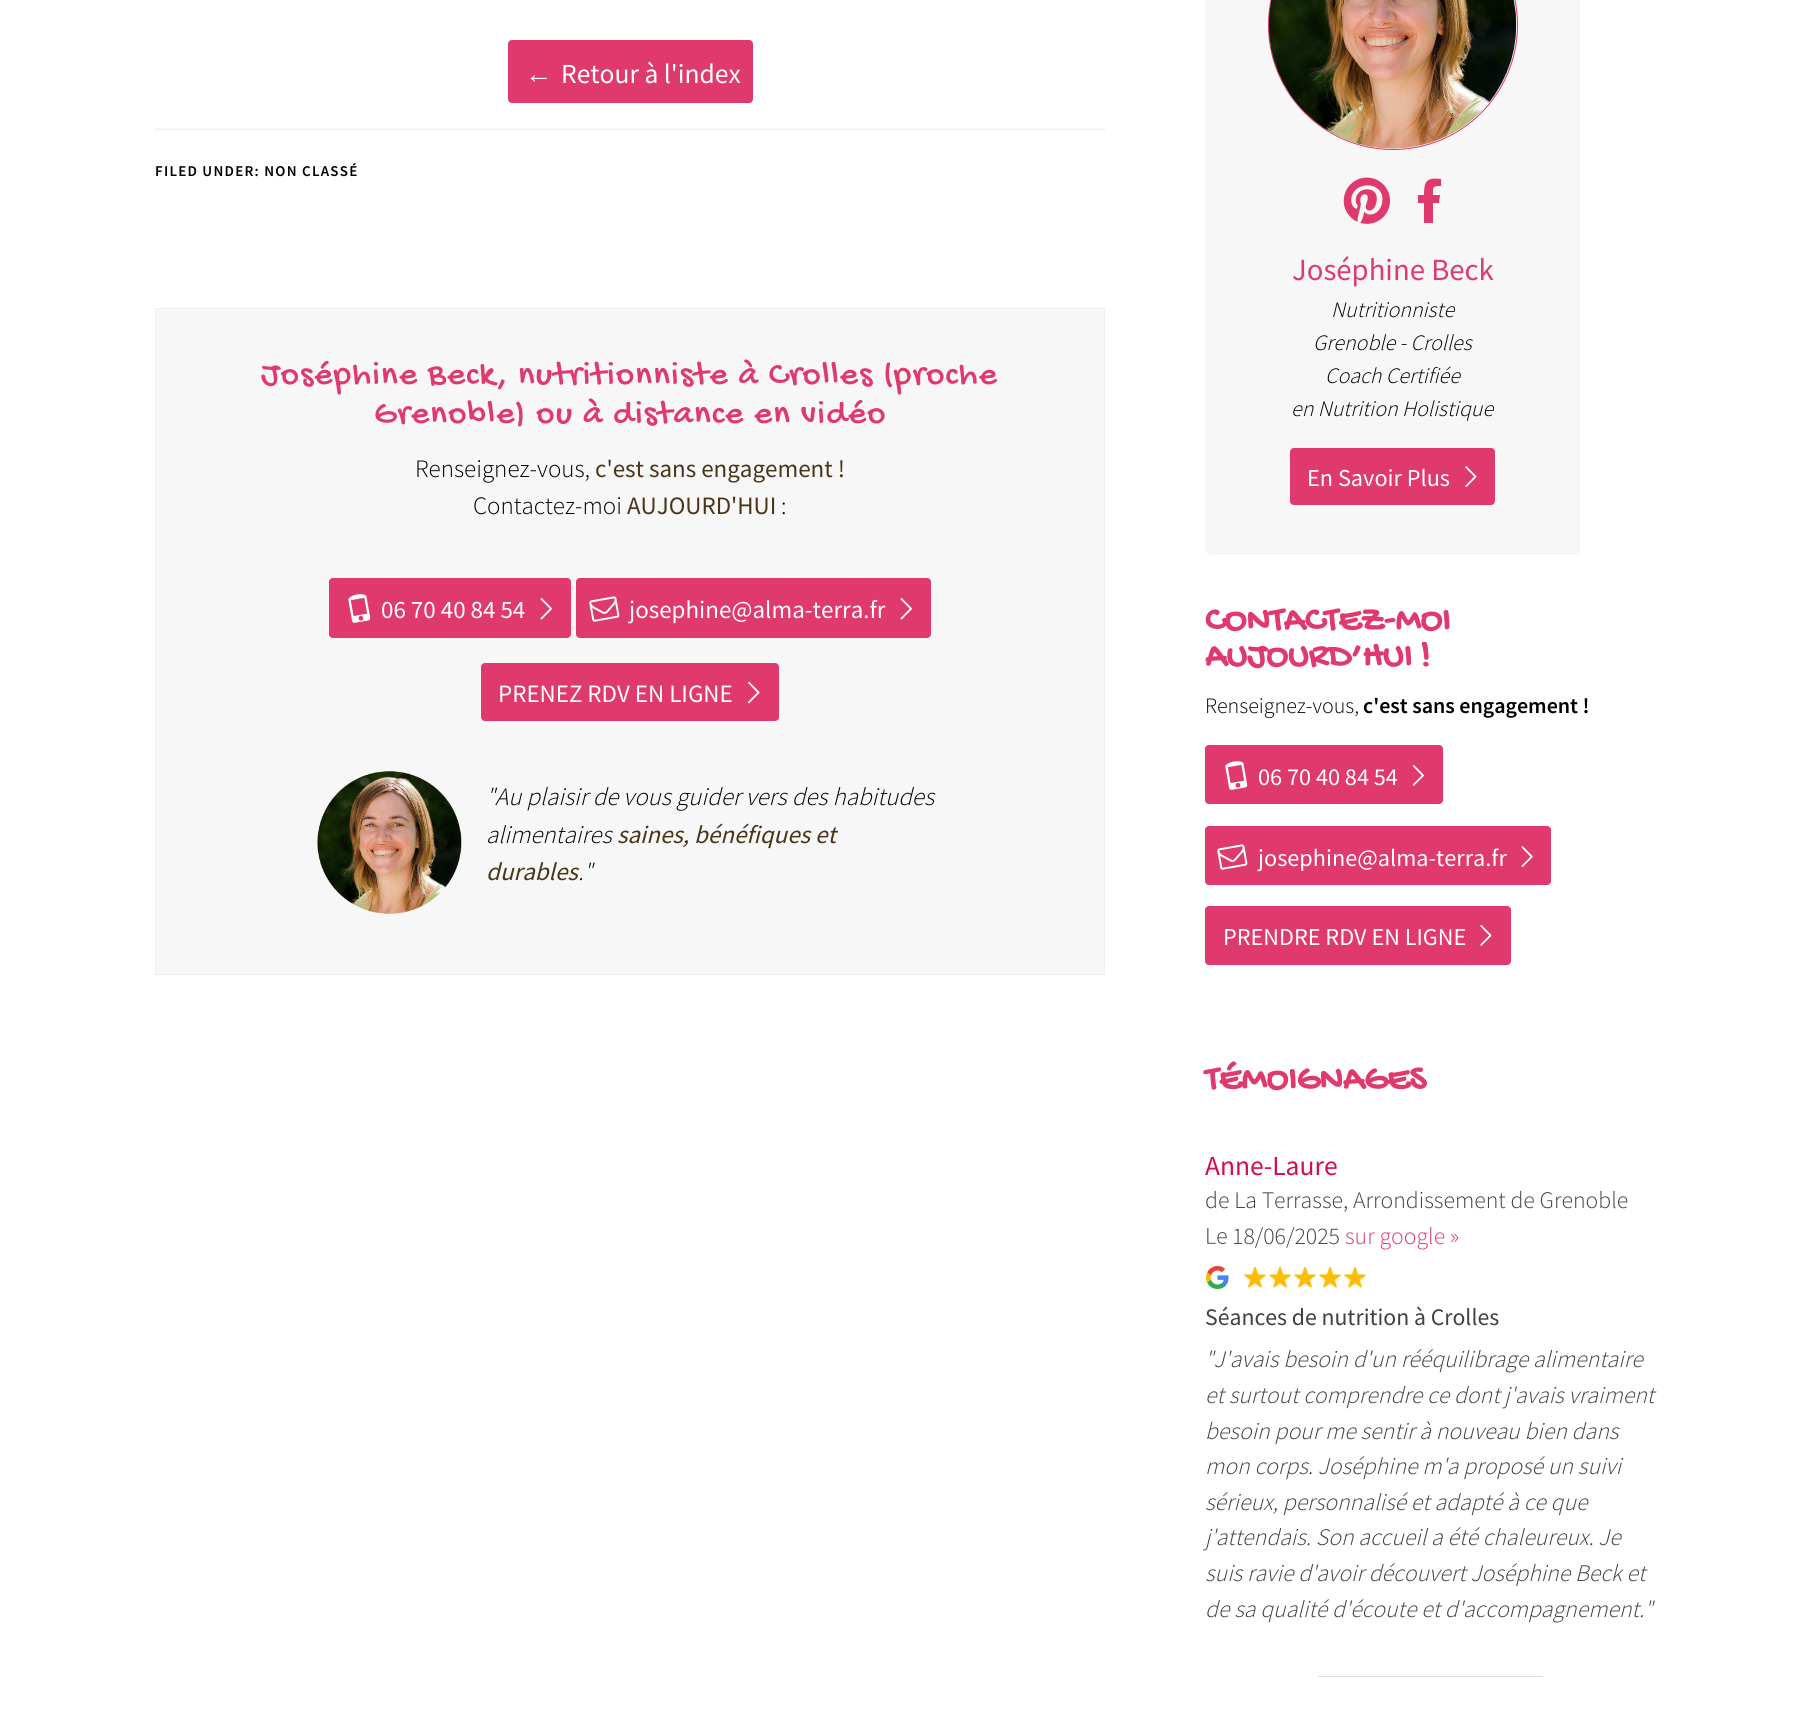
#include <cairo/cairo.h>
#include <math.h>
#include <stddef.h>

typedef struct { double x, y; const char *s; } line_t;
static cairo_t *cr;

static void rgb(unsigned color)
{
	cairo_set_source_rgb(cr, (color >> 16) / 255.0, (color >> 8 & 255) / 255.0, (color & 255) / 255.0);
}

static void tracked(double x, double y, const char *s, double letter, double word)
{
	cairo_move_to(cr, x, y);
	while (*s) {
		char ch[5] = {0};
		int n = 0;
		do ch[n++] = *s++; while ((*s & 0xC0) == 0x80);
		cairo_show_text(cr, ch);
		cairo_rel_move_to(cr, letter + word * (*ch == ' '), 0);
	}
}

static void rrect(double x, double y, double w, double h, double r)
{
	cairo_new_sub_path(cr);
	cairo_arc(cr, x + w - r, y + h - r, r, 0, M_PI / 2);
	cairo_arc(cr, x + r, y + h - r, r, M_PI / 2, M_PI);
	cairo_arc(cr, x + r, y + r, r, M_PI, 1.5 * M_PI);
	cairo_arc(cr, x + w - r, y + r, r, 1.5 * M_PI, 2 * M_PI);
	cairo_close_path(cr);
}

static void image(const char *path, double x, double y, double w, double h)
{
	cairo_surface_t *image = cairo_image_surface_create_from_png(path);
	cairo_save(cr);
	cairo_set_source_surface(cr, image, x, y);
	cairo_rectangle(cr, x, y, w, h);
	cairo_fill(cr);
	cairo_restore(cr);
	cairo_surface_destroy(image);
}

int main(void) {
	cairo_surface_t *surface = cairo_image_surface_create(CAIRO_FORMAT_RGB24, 1810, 1733);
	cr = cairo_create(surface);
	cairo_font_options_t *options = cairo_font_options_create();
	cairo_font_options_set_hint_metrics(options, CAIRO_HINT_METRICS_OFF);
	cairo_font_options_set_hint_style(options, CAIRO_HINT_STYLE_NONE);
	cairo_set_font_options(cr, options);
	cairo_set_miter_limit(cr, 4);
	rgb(0xffffff);
	cairo_paint(cr);
	rgb(0xdf396e);
	rrect(508, 40, 245, 63, 4);
	cairo_fill(cr);
	rgb(0xf5f5f5);
	cairo_rectangle(cr, 155, 128, 950, 3);
	cairo_fill(cr);
	rgb(0xf7f7f7);
	cairo_rectangle(cr, 155.5, 308.5, 949, 666);
	cairo_fill_preserve(cr);
	rgb(0xeeeeee);
	cairo_set_line_width(cr, 1);
	cairo_stroke(cr);
	rgb(0xdf396e);
	rrect(329, 578, 242, 60, 4);
	cairo_fill(cr);
	image("img/1.png", 540, 598, 12, 22);
	rrect(576, 578, 355, 60, 4);
	cairo_fill(cr);
	image("img/1.png", 900, 598, 12, 22);
	rrect(481, 663, 298, 58, 4);
	cairo_fill(cr);
	image("img/2.png", 748, 681, 12, 23);
	image("img/3.png", 317, 771, 145, 143);
	rgb(0xf7f7f7);
	rrect(1205, -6, 375, 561, 6);
	cairo_fill(cr);
	cairo_arc(cr, 1393, 25, 124.5, 0, 2 * M_PI);
	rgb(0xdf396e);
	cairo_stroke(cr);
	image("img/4.png", 1268, 0, 249, 149);
	image("img/5.png", 1343, 177, 47, 47);
	cairo_new_path(cr);
	cairo_move_to(cr, 1441, 179);
	cairo_line_to(cr, 1441, 186);
	cairo_curve_to(cr, 1432, 186, 1433, 187, 1433, 195);
	cairo_line_to(cr, 1440, 195);
	cairo_line_to(cr, 1439, 203);
	cairo_line_to(cr, 1433, 203);
	cairo_line_to(cr, 1433, 223);
	cairo_line_to(cr, 1424, 223);
	cairo_line_to(cr, 1424, 203);
	cairo_line_to(cr, 1418, 203);
	cairo_line_to(cr, 1418, 195);
	cairo_line_to(cr, 1424, 195);
	cairo_curve_to(cr, 1424, 182, 1426, 177, 1441, 179);
	cairo_close_path(cr);
	cairo_fill(cr);
	rrect(1290, 448, 205, 57, 4);
	cairo_fill(cr);
	image("img/6.png", 1465, 466, 12, 21);
	rrect(1205, 745, 238, 59, 4);
	cairo_fill(cr);
	image("img/7.png", 1412, 765, 12, 21);
	rrect(1205, 826, 346, 59, 4);
	cairo_fill(cr);
	image("img/8.png", 1521, 846, 12, 21);
	rrect(1205, 906, 306, 59, 4);
	cairo_fill(cr);
	image("img/9.png", 1480, 925, 12, 21);
	image("img/10.png", 1207, 1228, 20, 16);
	image("img/11.png", 1206, 1266, 23, 23);
	image("img/12.png", 1244, 1266, 22, 22);
	image("img/12.png", 1269, 1266, 22, 22);
	image("img/12.png", 1294, 1266, 22, 22);
	image("img/12.png", 1319, 1266, 22, 22);
	image("img/12.png", 1344, 1266, 22, 22);
	rgb(0xdddddd);
	cairo_rectangle(cr, 1318, 1676, 225, 1);
	cairo_fill(cr);
	cairo_select_font_face(cr, "Liberation Serif", CAIRO_FONT_SLANT_NORMAL, CAIRO_FONT_WEIGHT_NORMAL);
	cairo_set_font_size(cr, 27.5);
	rgb(0xffffff);
	cairo_move_to(cr, 525, 83);
	cairo_show_text(cr, "←");
	cairo_select_font_face(cr, "Source Sans Pro", CAIRO_FONT_SLANT_NORMAL, CAIRO_FONT_WEIGHT_NORMAL);
	cairo_move_to(cr, 561, 83);
	cairo_show_text(cr, "Retour à l'index");
	cairo_select_font_face(cr, "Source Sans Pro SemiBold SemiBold", CAIRO_FONT_SLANT_NORMAL, CAIRO_FONT_WEIGHT_NORMAL);
	cairo_set_font_size(cr, 15);
	rgb(0x000000);
	tracked(155, 176, "FILED UNDER: NON CLASSÉ", 1.25, 0);
	cairo_select_font_face(cr, "Gochi Hand", CAIRO_FONT_SLANT_NORMAL, CAIRO_FONT_WEIGHT_NORMAL);
	cairo_set_font_size(cr, 35);
	rgb(0xdf396e);
	tracked(261, 383, "Joséphine Beck, nutritionniste à Crolles (proche", 1.25, 0);
	tracked(374, 422, "Grenoble) ou à distance en vidéo", 1.25, 0);
	cairo_select_font_face(cr, "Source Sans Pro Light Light", CAIRO_FONT_SLANT_NORMAL, CAIRO_FONT_WEIGHT_NORMAL);
	cairo_set_font_size(cr, 25);
	rgb(0x000000);
	cairo_move_to(cr, 415, 477);
	cairo_show_text(cr, "Renseignez-vous,");
	cairo_select_font_face(cr, "Source Sans Pro", CAIRO_FONT_SLANT_NORMAL, CAIRO_FONT_WEIGHT_NORMAL);
	rgb(0x4b3518);
	cairo_move_to(cr, 595, 477);
	cairo_show_text(cr, "c'est sans engagement !");
	cairo_select_font_face(cr, "Source Sans Pro Light Light", CAIRO_FONT_SLANT_NORMAL, CAIRO_FONT_WEIGHT_NORMAL);
	rgb(0x000000);
	cairo_move_to(cr, 473, 514);
	cairo_show_text(cr, "Contactez-moi");
	cairo_select_font_face(cr, "Source Sans Pro", CAIRO_FONT_SLANT_NORMAL, CAIRO_FONT_WEIGHT_NORMAL);
	rgb(0x4b3518);
	cairo_move_to(cr, 627, 514);
	cairo_show_text(cr, "AUJOURD'HUI");
	cairo_select_font_face(cr, "Source Sans Pro Light Light", CAIRO_FONT_SLANT_NORMAL, CAIRO_FONT_WEIGHT_NORMAL);
	rgb(0x000000);
	cairo_move_to(cr, 781, 514);
	cairo_show_text(cr, ":");
	cairo_select_font_face(cr, "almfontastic", CAIRO_FONT_SLANT_NORMAL, CAIRO_FONT_WEIGHT_NORMAL);
	cairo_set_font_size(cr, 27.5);
	rgb(0xffffff);
	cairo_save(cr);
	cairo_translate(cr, 348, 624);
	cairo_rotate(cr, -10 * M_PI / 180);
	cairo_move_to(cr, 0, 0);
	cairo_show_text(cr, "i");
	cairo_restore(cr);
	cairo_select_font_face(cr, "Source Sans Pro", CAIRO_FONT_SLANT_NORMAL, CAIRO_FONT_WEIGHT_NORMAL);
	cairo_set_font_size(cr, 25);
	cairo_move_to(cr, 381, 618);
	cairo_show_text(cr, "06 70 40 84 54");
	cairo_select_font_face(cr, "almfontastic", CAIRO_FONT_SLANT_NORMAL, CAIRO_FONT_WEIGHT_NORMAL);
	cairo_set_font_size(cr, 27.5);
	cairo_save(cr);
	cairo_translate(cr, 593, 624);
	cairo_rotate(cr, -10 * M_PI / 180);
	cairo_move_to(cr, 0, 0);
	cairo_show_text(cr, "h");
	cairo_restore(cr);
	cairo_select_font_face(cr, "Source Sans Pro", CAIRO_FONT_SLANT_NORMAL, CAIRO_FONT_WEIGHT_NORMAL);
	cairo_set_font_size(cr, 25);
	cairo_move_to(cr, 629, 618);
	cairo_show_text(cr, "josephine@alma-terra.fr");
	cairo_move_to(cr, 498, 702);
	cairo_show_text(cr, "PRENEZ RDV EN LIGNE");
	cairo_select_font_face(cr, "Source Sans Pro Light Light", CAIRO_FONT_SLANT_ITALIC, CAIRO_FONT_WEIGHT_NORMAL);
	rgb(0x000000);
	cairo_move_to(cr, 486, 805);
	cairo_show_text(cr, "\"Au plaisir de vous guider vers des habitudes");
	cairo_move_to(cr, 486, 843);
	cairo_show_text(cr, "alimentaires");
	cairo_select_font_face(cr, "Source Sans Pro", CAIRO_FONT_SLANT_ITALIC, CAIRO_FONT_WEIGHT_NORMAL);
	rgb(0x4b3518);
	cairo_move_to(cr, 617, 843);
	cairo_show_text(cr, "saines, bénéfiques et");
	cairo_move_to(cr, 486, 880);
	cairo_show_text(cr, "durables");
	cairo_select_font_face(cr, "Source Sans Pro Light Light", CAIRO_FONT_SLANT_ITALIC, CAIRO_FONT_WEIGHT_NORMAL);
	rgb(0x000000);
	cairo_move_to(cr, 578, 880);
	cairo_show_text(cr, ".\"");
	cairo_select_font_face(cr, "Source Sans Pro", CAIRO_FONT_SLANT_NORMAL, CAIRO_FONT_WEIGHT_NORMAL);
	cairo_set_font_size(cr, 30.75);
	rgb(0xdf396e);
	cairo_move_to(cr, 1292, 280);
	cairo_show_text(cr, "Joséphine Beck");
	cairo_select_font_face(cr, "Source Sans Pro Light Light", CAIRO_FONT_SLANT_ITALIC, CAIRO_FONT_WEIGHT_NORMAL);
	cairo_set_font_size(cr, 22);
	rgb(0x000000);
	{
		static const line_t items[] = {
			{1331, 317, "Nutritionniste"},
			{1313, 350, "Grenoble - Crolles"},
			{1325, 383, "Coach Certifiée"},
			{1291, 416, "en Nutrition Holistique"},
		};
		for (size_t i = 0; i < sizeof items / sizeof *items; i++) {
			cairo_move_to(cr, items[i].x, items[i].y);
			cairo_show_text(cr, items[i].s);
		}
	}
	cairo_select_font_face(cr, "Source Sans Pro", CAIRO_FONT_SLANT_NORMAL, CAIRO_FONT_WEIGHT_NORMAL);
	cairo_set_font_size(cr, 24.25);
	rgb(0xffffff);
	cairo_move_to(cr, 1307, 486);
	cairo_show_text(cr, "En Savoir Plus");
	cairo_select_font_face(cr, "Gochi Hand", CAIRO_FONT_SLANT_NORMAL, CAIRO_FONT_WEIGHT_BOLD);
	cairo_set_font_size(cr, 36);
	rgb(0xdf396e);
	cairo_move_to(cr, 1205, 629);
	cairo_show_text(cr, "CONTACTEZ-MOI");
	cairo_move_to(cr, 1205, 665);
	cairo_show_text(cr, "AUJOURD’HUI !");
	cairo_select_font_face(cr, "Source Sans Pro Light Light", CAIRO_FONT_SLANT_NORMAL, CAIRO_FONT_WEIGHT_NORMAL);
	cairo_set_font_size(cr, 22);
	rgb(0x000000);
	cairo_move_to(cr, 1205, 713);
	cairo_show_text(cr, "Renseignez-vous,");
	cairo_select_font_face(cr, "Source Sans Pro SemiBold SemiBold", CAIRO_FONT_SLANT_NORMAL, CAIRO_FONT_WEIGHT_NORMAL);
	cairo_move_to(cr, 1363, 713);
	cairo_show_text(cr, "c'est sans engagement !");
	cairo_select_font_face(cr, "almfontastic", CAIRO_FONT_SLANT_NORMAL, CAIRO_FONT_WEIGHT_NORMAL);
	cairo_set_font_size(cr, 27.5);
	rgb(0xffffff);
	cairo_save(cr);
	cairo_translate(cr, 1225, 791);
	cairo_rotate(cr, -10 * M_PI / 180);
	cairo_move_to(cr, 0, 0);
	cairo_show_text(cr, "i");
	cairo_restore(cr);
	cairo_select_font_face(cr, "Source Sans Pro", CAIRO_FONT_SLANT_NORMAL, CAIRO_FONT_WEIGHT_NORMAL);
	cairo_set_font_size(cr, 24.25);
	cairo_move_to(cr, 1258, 785);
	cairo_show_text(cr, "06 70 40 84 54");
	cairo_select_font_face(cr, "almfontastic", CAIRO_FONT_SLANT_NORMAL, CAIRO_FONT_WEIGHT_NORMAL);
	cairo_set_font_size(cr, 27.5);
	cairo_save(cr);
	cairo_translate(cr, 1221, 872);
	cairo_rotate(cr, -10 * M_PI / 180);
	cairo_move_to(cr, 0, 0);
	cairo_show_text(cr, "h");
	cairo_restore(cr);
	cairo_select_font_face(cr, "Source Sans Pro", CAIRO_FONT_SLANT_NORMAL, CAIRO_FONT_WEIGHT_NORMAL);
	cairo_set_font_size(cr, 24.25);
	cairo_move_to(cr, 1258, 866);
	cairo_show_text(cr, "josephine@alma-terra.fr");
	cairo_move_to(cr, 1223, 945);
	cairo_show_text(cr, "PRENDRE RDV EN LIGNE");
	cairo_select_font_face(cr, "Gochi Hand", CAIRO_FONT_SLANT_NORMAL, CAIRO_FONT_WEIGHT_BOLD);
	cairo_set_font_size(cr, 36);
	rgb(0xdf396e);
	cairo_move_to(cr, 1205, 1088);
	cairo_show_text(cr, "TÉMOIGNAGES");
	cairo_select_font_face(cr, "Source Sans Pro", CAIRO_FONT_SLANT_NORMAL, CAIRO_FONT_WEIGHT_NORMAL);
	cairo_set_font_size(cr, 27.5);
	rgb(0xd40d4d);
	cairo_move_to(cr, 1205, 1175);
	cairo_show_text(cr, "Anne-Laure");
	cairo_select_font_face(cr, "Source Sans Pro Light Light", CAIRO_FONT_SLANT_NORMAL, CAIRO_FONT_WEIGHT_NORMAL);
	cairo_set_font_size(cr, 23.75);
	rgb(0x404040);
	cairo_move_to(cr, 1205, 1208);
	cairo_show_text(cr, "de La Terrasse, Arrondissement de Grenoble");
	cairo_move_to(cr, 1232, 1244);
	cairo_show_text(cr, "18/06/2025");
	rgb(0xdf396e);
	cairo_move_to(cr, 1345, 1244);
	cairo_show_text(cr, "sur google »");
	cairo_select_font_face(cr, "Source Sans Pro", CAIRO_FONT_SLANT_NORMAL, CAIRO_FONT_WEIGHT_NORMAL);
	rgb(0x404040);
	cairo_move_to(cr, 1205, 1325);
	cairo_show_text(cr, "Séances de nutrition à Crolles");
	cairo_select_font_face(cr, "Source Sans Pro Light Light", CAIRO_FONT_SLANT_ITALIC, CAIRO_FONT_WEIGHT_NORMAL);
	{
		static const line_t items[] = {
			{1205, 1367, "\"J'avais besoin d'un rééquilibrage alimentaire"},
			{1205, 1403, "et surtout comprendre ce dont j'avais vraiment"},
			{1205, 1439, "besoin pour me sentir à nouveau bien dans"},
			{1205, 1474, "mon corps. Joséphine m'a proposé un suivi"},
			{1205, 1510, "sérieux, personnalisé et adapté à ce que"},
			{1205, 1545, "j'attendais. Son accueil a été chaleureux. Je"},
			{1205, 1581, "suis ravie d'avoir découvert Joséphine Beck et"},
			{1205, 1617, "de sa qualité d'écoute et d'accompagnement.\""},
		};
		for (size_t i = 0; i < sizeof items / sizeof *items; i++) {
			cairo_move_to(cr, items[i].x, items[i].y);
			cairo_show_text(cr, items[i].s);
		}
	}
	cairo_surface_write_to_png(surface, "page.png");
	cairo_font_options_destroy(options);
	cairo_destroy(cr);
	cairo_surface_destroy(surface);
	return 0;
}
